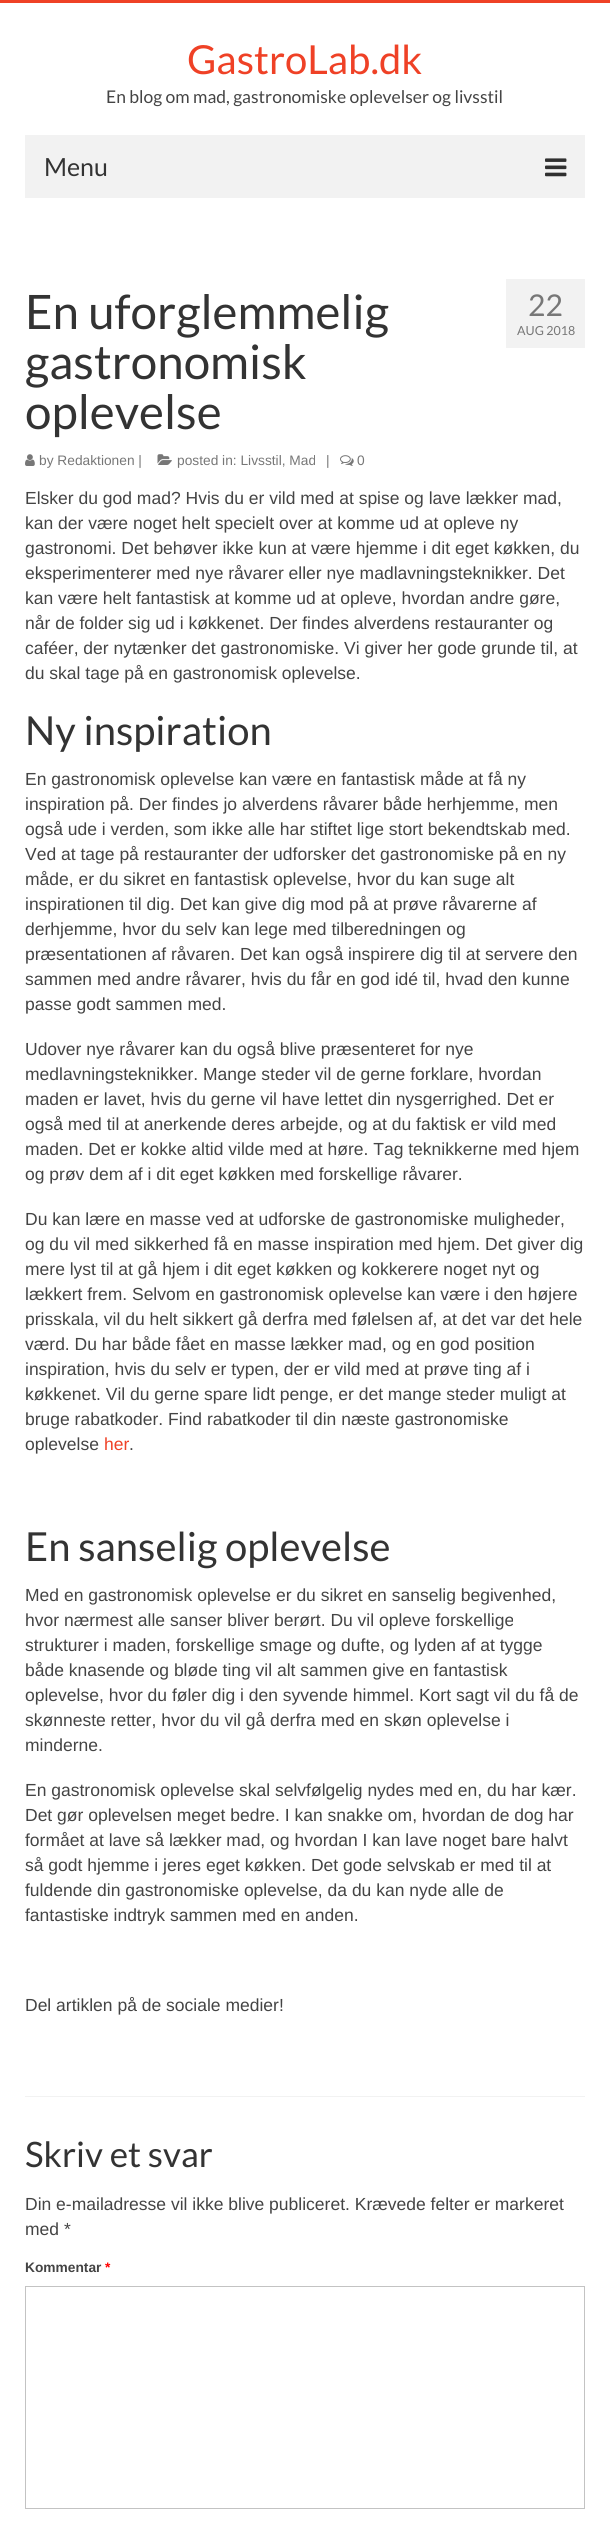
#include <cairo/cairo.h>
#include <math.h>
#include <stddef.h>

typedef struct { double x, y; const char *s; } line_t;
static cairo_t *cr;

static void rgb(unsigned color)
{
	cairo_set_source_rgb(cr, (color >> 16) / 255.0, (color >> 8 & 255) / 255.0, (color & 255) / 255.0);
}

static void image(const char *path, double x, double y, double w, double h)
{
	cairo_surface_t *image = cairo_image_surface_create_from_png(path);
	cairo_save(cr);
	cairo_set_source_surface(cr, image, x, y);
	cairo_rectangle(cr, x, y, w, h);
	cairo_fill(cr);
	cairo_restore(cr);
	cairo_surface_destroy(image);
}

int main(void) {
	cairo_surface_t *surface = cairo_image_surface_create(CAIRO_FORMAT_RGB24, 610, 2521);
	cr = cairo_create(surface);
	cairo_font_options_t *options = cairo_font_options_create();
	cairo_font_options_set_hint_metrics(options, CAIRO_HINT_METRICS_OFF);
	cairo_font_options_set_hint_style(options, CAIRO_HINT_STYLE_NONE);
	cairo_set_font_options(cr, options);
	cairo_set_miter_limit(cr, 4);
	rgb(0xffffff);
	cairo_paint(cr);
	rgb(0xef4126);
	cairo_rectangle(cr, 0, 0, 610, 3);
	cairo_fill(cr);
	rgb(0xf2f2f2);
	cairo_rectangle(cr, 25, 135, 560, 63);
	cairo_fill(cr);
	image("img/1.png", 545, 158, 22, 19);
	image("img/2.png", 25, 454, 10, 12);
	image("img/3.png", 157, 454, 15, 11);
	image("img/4.png", 340, 455, 14, 11);
	cairo_rectangle(cr, 506, 279, 79, 69);
	cairo_fill(cr);
	cairo_rectangle(cr, 25, 2096, 560, 1);
	cairo_fill(cr);
	cairo_rectangle(cr, 25.5, 2286.5, 559, 222);
	rgb(0xc3c3c3);
	cairo_set_line_width(cr, 1);
	cairo_stroke(cr);
	cairo_select_font_face(cr, "Lato", CAIRO_FONT_SLANT_NORMAL, CAIRO_FONT_WEIGHT_NORMAL);
	cairo_set_font_size(cr, 40);
	rgb(0xef4126);
	cairo_move_to(cr, 187, 74);
	cairo_show_text(cr, "GastroLab.dk");
	cairo_set_font_size(cr, 17.5);
	rgb(0x444444);
	cairo_move_to(cr, 106, 103);
	cairo_show_text(cr, "En blog om mad, gastronomiske oplevelser og livsstil");
	cairo_set_font_size(cr, 25);
	rgb(0x333333);
	cairo_move_to(cr, 44, 176);
	cairo_show_text(cr, "Menu");
	cairo_set_font_size(cr, 47.5);
	{
		static const line_t items[] = {
			{25, 329, "En uforglemmelig"},
			{25, 379, "gastronomisk"},
			{25, 429, "oplevelse"},
		};
		for (size_t i = 0; i < sizeof items / sizeof *items; i++) {
			cairo_move_to(cr, items[i].x, items[i].y);
			cairo_show_text(cr, items[i].s);
		}
	}
	cairo_select_font_face(cr, "Liberation Sans", CAIRO_FONT_SLANT_NORMAL, CAIRO_FONT_WEIGHT_NORMAL);
	cairo_set_font_size(cr, 13.75);
	rgb(0x777777);
	{
		static const line_t items[] = {
			{39, 465, "by Redaktionen |"},
			{177, 465, "posted in: Livsstil, Mad"},
			{326, 465, "|"},
			{357, 465, "0"},
		};
		for (size_t i = 0; i < sizeof items / sizeof *items; i++) {
			cairo_move_to(cr, items[i].x, items[i].y);
			cairo_show_text(cr, items[i].s);
		}
	}
	cairo_select_font_face(cr, "Lato", CAIRO_FONT_SLANT_NORMAL, CAIRO_FONT_WEIGHT_NORMAL);
	cairo_set_font_size(cr, 30);
	cairo_move_to(cr, 528, 316);
	cairo_show_text(cr, "22");
	cairo_set_font_size(cr, 12.5);
	cairo_move_to(cr, 517, 335);
	cairo_show_text(cr, "AUG 2018");
	cairo_select_font_face(cr, "Liberation Sans", CAIRO_FONT_SLANT_NORMAL, CAIRO_FONT_WEIGHT_NORMAL);
	cairo_set_font_size(cr, 17.5);
	rgb(0x444444);
	{
		static const line_t items[] = {
			{25, 504, "Elsker du god mad? Hvis du er vild med at spise og lave lækker mad,"},
			{25, 529, "kan der være noget helt specielt over at komme ud at opleve ny"},
			{25, 554, "gastronomi. Det behøver ikke kun at være hjemme i dit eget køkken, du"},
			{25, 579, "eksperimenterer med nye råvarer eller nye madlavningsteknikker. Det"},
			{25, 604, "kan være helt fantastisk at komme ud at opleve, hvordan andre gøre,"},
			{25, 629, "når de folder sig ud i køkkenet. Der findes alverdens restauranter og"},
			{25, 654, "caféer, der nytænker det gastronomiske. Vi giver her gode grunde til, at"},
			{25, 679, "du skal tage på en gastronomisk oplevelse."},
		};
		for (size_t i = 0; i < sizeof items / sizeof *items; i++) {
			cairo_move_to(cr, items[i].x, items[i].y);
			cairo_show_text(cr, items[i].s);
		}
	}
	cairo_select_font_face(cr, "Lato", CAIRO_FONT_SLANT_NORMAL, CAIRO_FONT_WEIGHT_NORMAL);
	cairo_set_font_size(cr, 40);
	rgb(0x333333);
	cairo_move_to(cr, 25, 745);
	cairo_show_text(cr, "Ny inspiration");
	cairo_select_font_face(cr, "Liberation Sans", CAIRO_FONT_SLANT_NORMAL, CAIRO_FONT_WEIGHT_NORMAL);
	cairo_set_font_size(cr, 17.5);
	rgb(0x444444);
	{
		static const line_t items[] = {
			{25, 785, "En gastronomisk oplevelse kan være en fantastisk måde at få ny"},
			{25, 810, "inspiration på. Der findes jo alverdens råvarer både herhjemme, men"},
			{25, 835, "også ude i verden, som ikke alle har stiftet lige stort bekendtskab med."},
			{25, 860, "Ved at tage på restauranter der udforsker det gastronomiske på en ny"},
			{25, 885, "måde, er du sikret en fantastisk oplevelse, hvor du kan suge alt"},
			{25, 910, "inspirationen til dig. Det kan give dig mod på at prøve råvarerne af"},
			{25, 935, "derhjemme, hvor du selv kan lege med tilberedningen og"},
			{25, 960, "præsentationen af råvaren. Det kan også inspirere dig til at servere den"},
			{25, 985, "sammen med andre råvarer, hvis du får en god idé til, hvad den kunne"},
			{25, 1010, "passe godt sammen med."},
			{25, 1055, "Udover nye råvarer kan du også blive præsenteret for nye"},
			{25, 1080, "medlavningsteknikker. Mange steder vil de gerne forklare, hvordan"},
			{25, 1105, "maden er lavet, hvis du gerne vil have lettet din nysgerrighed. Det er"},
			{25, 1130, "også med til at anerkende deres arbejde, og at du faktisk er vild med"},
			{25, 1155, "maden. Det er kokke altid vilde med at høre. Tag teknikkerne med hjem"},
			{25, 1180, "og prøv dem af i dit eget køkken med forskellige råvarer."},
			{25, 1225, "Du kan lære en masse ved at udforske de gastronomiske muligheder,"},
			{25, 1250, "og du vil med sikkerhed få en masse inspiration med hjem. Det giver dig"},
			{25, 1275, "mere lyst til at gå hjem i dit eget køkken og kokkerere noget nyt og"},
			{25, 1300, "lækkert frem. Selvom en gastronomisk oplevelse kan være i den højere"},
			{25, 1325, "prisskala, vil du helt sikkert gå derfra med følelsen af, at det var det hele"},
			{25, 1350, "værd. Du har både fået en masse lækker mad, og en god position"},
			{25, 1375, "inspiration, hvis du selv er typen, der er vild med at prøve ting af i"},
			{25, 1400, "køkkenet. Vil du gerne spare lidt penge, er det mange steder muligt at"},
			{25, 1425, "bruge rabatkoder. Find rabatkoder til din næste gastronomiske"},
			{25, 1450, "oplevelse"},
		};
		for (size_t i = 0; i < sizeof items / sizeof *items; i++) {
			cairo_move_to(cr, items[i].x, items[i].y);
			cairo_show_text(cr, items[i].s);
		}
	}
	rgb(0xef4126);
	cairo_move_to(cr, 104, 1450);
	cairo_show_text(cr, "her");
	rgb(0x444444);
	cairo_move_to(cr, 129, 1450);
	cairo_show_text(cr, ".");
	cairo_select_font_face(cr, "Lato", CAIRO_FONT_SLANT_NORMAL, CAIRO_FONT_WEIGHT_NORMAL);
	cairo_set_font_size(cr, 40);
	rgb(0x333333);
	cairo_move_to(cr, 25, 1561);
	cairo_show_text(cr, "En sanselig oplevelse");
	cairo_select_font_face(cr, "Liberation Sans", CAIRO_FONT_SLANT_NORMAL, CAIRO_FONT_WEIGHT_NORMAL);
	cairo_set_font_size(cr, 17.5);
	rgb(0x444444);
	{
		static const line_t items[] = {
			{25, 1601, "Med en gastronomisk oplevelse er du sikret en sanselig begivenhed,"},
			{25, 1626, "hvor nærmest alle sanser bliver berørt. Du vil opleve forskellige"},
			{25, 1651, "strukturer i maden, forskellige smage og dufte, og lyden af at tygge"},
			{25, 1676, "både knasende og bløde ting vil alt sammen give en fantastisk"},
			{25, 1701, "oplevelse, hvor du føler dig i den syvende himmel. Kort sagt vil du få de"},
			{25, 1726, "skønneste retter, hvor du vil gå derfra med en skøn oplevelse i"},
			{25, 1751, "minderne."},
			{25, 1796, "En gastronomisk oplevelse skal selvfølgelig nydes med en, du har kær."},
			{25, 1821, "Det gør oplevelsen meget bedre. I kan snakke om, hvordan de dog har"},
			{25, 1846, "formået at lave så lækker mad, og hvordan I kan lave noget bare halvt"},
			{25, 1871, "så godt hjemme i jeres eget køkken. Det gode selvskab er med til at"},
			{25, 1896, "fuldende din gastronomiske oplevelse, da du kan nyde alle de"},
			{25, 1921, "fantastiske indtryk sammen med en anden."},
			{25, 2011, "Del artiklen på de sociale medier!"},
		};
		for (size_t i = 0; i < sizeof items / sizeof *items; i++) {
			cairo_move_to(cr, items[i].x, items[i].y);
			cairo_show_text(cr, items[i].s);
		}
	}
	cairo_select_font_face(cr, "Lato", CAIRO_FONT_SLANT_NORMAL, CAIRO_FONT_WEIGHT_NORMAL);
	cairo_set_font_size(cr, 35);
	rgb(0x333333);
	cairo_move_to(cr, 25, 2167);
	cairo_show_text(cr, "Skriv et svar");
	cairo_select_font_face(cr, "Liberation Sans", CAIRO_FONT_SLANT_NORMAL, CAIRO_FONT_WEIGHT_NORMAL);
	cairo_set_font_size(cr, 17.5);
	rgb(0x444444);
	cairo_move_to(cr, 25, 2210);
	cairo_show_text(cr, "Din e-mailadresse vil ikke blive publiceret. Krævede felter er markeret");
	cairo_move_to(cr, 25, 2235);
	cairo_show_text(cr, "med *");
	cairo_select_font_face(cr, "Liberation Sans", CAIRO_FONT_SLANT_NORMAL, CAIRO_FONT_WEIGHT_BOLD);
	cairo_set_font_size(cr, 13.75);
	cairo_move_to(cr, 25, 2272);
	cairo_show_text(cr, "Kommentar");
	rgb(0xff0000);
	cairo_move_to(cr, 105, 2272);
	cairo_show_text(cr, "*");
	cairo_surface_write_to_png(surface, "page.png");
	cairo_font_options_destroy(options);
	cairo_destroy(cr);
	cairo_surface_destroy(surface);
	return 0;
}
